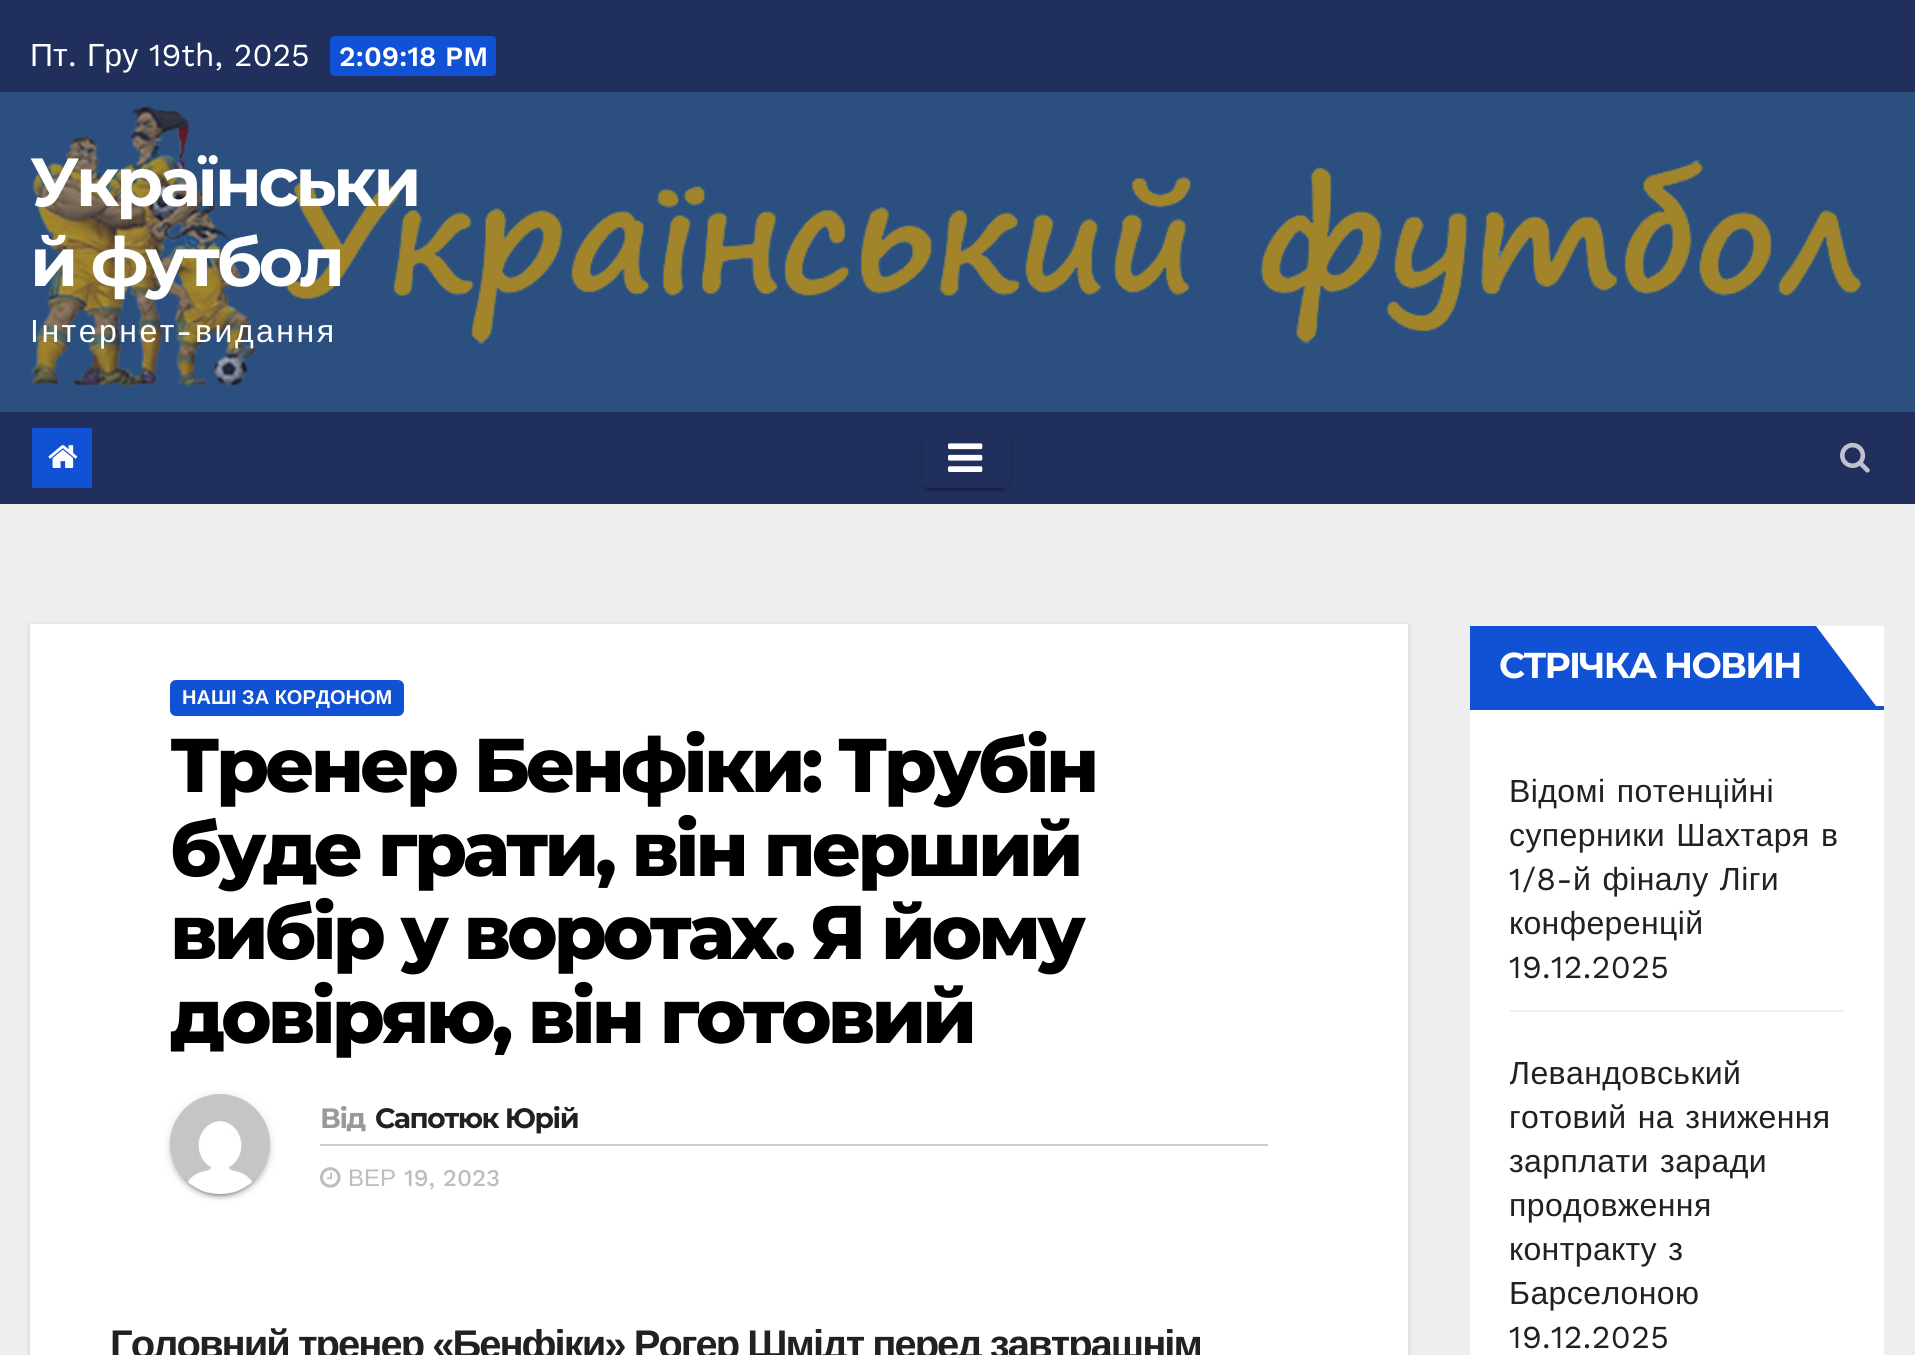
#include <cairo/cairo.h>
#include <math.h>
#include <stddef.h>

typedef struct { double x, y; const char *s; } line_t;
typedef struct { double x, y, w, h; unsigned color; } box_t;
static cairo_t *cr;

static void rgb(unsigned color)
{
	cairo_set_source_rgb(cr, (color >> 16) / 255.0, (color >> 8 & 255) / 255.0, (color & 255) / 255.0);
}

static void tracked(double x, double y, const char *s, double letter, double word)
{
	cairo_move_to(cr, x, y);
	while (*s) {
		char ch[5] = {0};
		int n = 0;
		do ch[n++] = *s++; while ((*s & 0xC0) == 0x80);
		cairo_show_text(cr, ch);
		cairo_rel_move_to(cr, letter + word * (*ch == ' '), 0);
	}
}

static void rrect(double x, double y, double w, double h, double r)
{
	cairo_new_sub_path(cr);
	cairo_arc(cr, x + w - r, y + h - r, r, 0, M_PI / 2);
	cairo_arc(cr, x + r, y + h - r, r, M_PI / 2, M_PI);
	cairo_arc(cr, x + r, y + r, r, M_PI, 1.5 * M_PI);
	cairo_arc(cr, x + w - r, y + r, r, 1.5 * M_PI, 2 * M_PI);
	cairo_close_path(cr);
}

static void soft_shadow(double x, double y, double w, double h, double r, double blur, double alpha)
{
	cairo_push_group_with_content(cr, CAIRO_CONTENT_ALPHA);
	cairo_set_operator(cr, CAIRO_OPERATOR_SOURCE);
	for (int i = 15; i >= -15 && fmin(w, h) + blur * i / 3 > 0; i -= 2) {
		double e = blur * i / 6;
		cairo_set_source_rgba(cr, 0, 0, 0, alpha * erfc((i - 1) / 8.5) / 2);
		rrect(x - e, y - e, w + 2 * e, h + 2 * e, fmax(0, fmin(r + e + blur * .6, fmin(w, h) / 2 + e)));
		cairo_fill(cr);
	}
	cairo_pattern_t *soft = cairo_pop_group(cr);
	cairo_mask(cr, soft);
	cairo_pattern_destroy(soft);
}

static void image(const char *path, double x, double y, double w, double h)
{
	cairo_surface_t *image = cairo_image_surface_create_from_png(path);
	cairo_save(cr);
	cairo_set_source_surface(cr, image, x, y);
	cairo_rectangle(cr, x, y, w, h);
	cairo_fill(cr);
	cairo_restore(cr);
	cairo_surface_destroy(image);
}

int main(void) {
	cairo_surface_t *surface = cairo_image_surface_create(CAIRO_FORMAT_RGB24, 1915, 1355);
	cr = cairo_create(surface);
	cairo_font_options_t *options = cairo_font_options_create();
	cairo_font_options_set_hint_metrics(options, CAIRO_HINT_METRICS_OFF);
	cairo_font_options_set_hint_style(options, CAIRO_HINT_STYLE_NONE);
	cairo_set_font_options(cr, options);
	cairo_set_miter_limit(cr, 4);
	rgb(0xeeeeee);
	cairo_paint(cr);
	rgb(0x202f5b);
	cairo_rectangle(cr, 0, 0, 1915, 92);
	cairo_fill(cr);
	rgb(0x1151d3);
	rrect(330, 36, 166, 40, 4);
	cairo_fill(cr);
	image("img/1.png", 0, 92, 1915, 320);
	rgb(0x202f5b);
	cairo_rectangle(cr, 0, 412, 1915, 92);
	cairo_fill(cr);
	rgb(0x1151d3);
	cairo_rectangle(cr, 32, 428, 60, 60);
	cairo_fill(cr);
	image("img/2.png", 48, 445, 30, 23);
	cairo_save(cr);
	cairo_set_fill_rule(cr, CAIRO_FILL_RULE_EVEN_ODD);
	cairo_new_path(cr);
	cairo_move_to(cr, 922, 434);
	cairo_line_to(cr, 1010, 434);
	cairo_line_to(cr, 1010, 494);
	cairo_line_to(cr, 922, 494);
	cairo_close_path(cr);
	cairo_move_to(cr, 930, 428);
	cairo_line_to(cr, 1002, 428);
	cairo_curve_to(cr, 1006.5, 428, 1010, 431.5, 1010, 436);
	cairo_line_to(cr, 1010, 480);
	cairo_curve_to(cr, 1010, 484.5, 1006.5, 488, 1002, 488);
	cairo_line_to(cr, 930, 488);
	cairo_curve_to(cr, 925.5, 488, 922, 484.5, 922, 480);
	cairo_line_to(cr, 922, 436);
	cairo_curve_to(cr, 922, 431.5, 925.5, 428, 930, 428);
	cairo_close_path(cr);
	cairo_clip(cr);
	rgb(0x000000);
	soft_shadow(926, 438, 80, 52, 4, 1, 0.2);
	cairo_restore(cr);
	cairo_save(cr);
	cairo_set_fill_rule(cr, CAIRO_FILL_RULE_EVEN_ODD);
	cairo_new_path(cr);
	cairo_move_to(cr, 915, 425);
	cairo_line_to(cr, 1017, 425);
	cairo_line_to(cr, 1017, 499);
	cairo_line_to(cr, 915, 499);
	cairo_close_path(cr);
	cairo_move_to(cr, 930, 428);
	cairo_line_to(cr, 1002, 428);
	cairo_curve_to(cr, 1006.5, 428, 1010, 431.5, 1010, 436);
	cairo_line_to(cr, 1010, 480);
	cairo_curve_to(cr, 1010, 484.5, 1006.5, 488, 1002, 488);
	cairo_line_to(cr, 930, 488);
	cairo_curve_to(cr, 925.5, 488, 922, 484.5, 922, 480);
	cairo_line_to(cr, 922, 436);
	cairo_curve_to(cr, 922, 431.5, 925.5, 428, 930, 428);
	cairo_close_path(cr);
	cairo_clip(cr);
	rgb(0x000000);
	soft_shadow(922, 432, 88, 60, 8, 2, 0.14);
	cairo_restore(cr);
	image("img/3.png", 948, 443, 35, 29);
	image("img/4.png", 1840, 442, 30, 31);
	rgb(0x000000);
	soft_shadow(30, 626, 1378, 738, 0, 3, 0.15);
	rgb(0xffffff);
	cairo_rectangle(cr, 30, 624, 1378, 731);
	cairo_fill(cr);
	rgb(0x1151d3);
	rrect(170, 680, 234, 36, 6);
	cairo_fill(cr);
	rgb(0x000000);
	soft_shadow(170, 1096, 100, 100, 50, 5, 0.12);
	soft_shadow(174, 1104, 92, 92, 46, 1, 0.2);
	soft_shadow(170, 1098, 100, 100, 50, 2, 0.14);
	image("img/5.png", 170, 1094, 100, 100);
	rgb(0xcccccc);
	cairo_rectangle(cr, 320, 1144, 948, 2);
	cairo_fill(cr);
	image("img/6.png", 320, 1167, 21, 21);
	{
		static const box_t items[] = {
			{1470, 626, 414, 729, 0xffffff},
			{1470, 706, 414, 4, 0x1151d3},
			{1470, 626, 346, 80, 0x1151d3},
		};
		for (size_t i = 0; i < sizeof items / sizeof *items; i++) {
			rgb(items[i].color);
			cairo_rectangle(cr, items[i].x, items[i].y, items[i].w, items[i].h);
			cairo_fill(cr);
		}
	}
	cairo_new_path(cr);
	cairo_move_to(cr, 1816, 706);
	cairo_line_to(cr, 1816, 626);
	cairo_line_to(cr, 1876, 706);
	cairo_close_path(cr);
	cairo_fill(cr);
	rgb(0xeeeeee);
	cairo_rectangle(cr, 1510, 1010, 334, 2);
	cairo_fill(cr);
	cairo_select_font_face(cr, "Liberation Sans", CAIRO_FONT_SLANT_NORMAL, CAIRO_FONT_WEIGHT_NORMAL);
	cairo_set_font_size(cr, 32);
	rgb(0xffffff);
	cairo_move_to(cr, 30, 66);
	cairo_show_text(cr, "Пт");
	cairo_select_font_face(cr, "Work Sans", CAIRO_FONT_SLANT_NORMAL, CAIRO_FONT_WEIGHT_NORMAL);
	cairo_move_to(cr, 68, 66);
	cairo_show_text(cr, ".");
	cairo_select_font_face(cr, "Liberation Sans", CAIRO_FONT_SLANT_NORMAL, CAIRO_FONT_WEIGHT_NORMAL);
	cairo_move_to(cr, 87, 66);
	cairo_show_text(cr, "Гру");
	cairo_select_font_face(cr, "Work Sans", CAIRO_FONT_SLANT_NORMAL, CAIRO_FONT_WEIGHT_NORMAL);
	cairo_move_to(cr, 149, 66);
	cairo_show_text(cr, "19th, 2025");
	cairo_select_font_face(cr, "Work Sans SemiBold", CAIRO_FONT_SLANT_NORMAL, CAIRO_FONT_WEIGHT_NORMAL);
	cairo_set_font_size(cr, 28);
	cairo_move_to(cr, 339, 66);
	cairo_show_text(cr, "2:09:18 PM");
	cairo_select_font_face(cr, "Montserrat", CAIRO_FONT_SLANT_NORMAL, CAIRO_FONT_WEIGHT_BOLD);
	cairo_set_font_size(cr, 68);
	tracked(30, 206, "Українськи", -3.4, 0);
	tracked(30, 286, "й футбол", -3.4, 0);
	cairo_select_font_face(cr, "Liberation Sans", CAIRO_FONT_SLANT_NORMAL, CAIRO_FONT_WEIGHT_NORMAL);
	cairo_set_font_size(cr, 32);
	tracked(30, 342, "Інтернет", 2.5, 0);
	cairo_select_font_face(cr, "Work Sans", CAIRO_FONT_SLANT_NORMAL, CAIRO_FONT_WEIGHT_NORMAL);
	tracked(176, 342, "-", 2.5, 0);
	cairo_select_font_face(cr, "Liberation Sans", CAIRO_FONT_SLANT_NORMAL, CAIRO_FONT_WEIGHT_NORMAL);
	tracked(195, 342, "видання", 2.5, 0);
	cairo_select_font_face(cr, "Liberation Sans", CAIRO_FONT_SLANT_NORMAL, CAIRO_FONT_WEIGHT_BOLD);
	cairo_set_font_size(cr, 20);
	cairo_move_to(cr, 182, 704);
	cairo_show_text(cr, "НАШІ ЗА КОРДОНОМ");
	cairo_select_font_face(cr, "Montserrat ExtraBold", CAIRO_FONT_SLANT_NORMAL, CAIRO_FONT_WEIGHT_NORMAL);
	cairo_set_font_size(cr, 76);
	rgb(0x000000);
	{
		static const line_t items[] = {
			{170, 792, "Тренер Бенфіки: Трубін"},
			{170, 876, "буде грати, він перший"},
			{170, 959, "вибір у воротах. Я йому"},
			{170, 1043, "довіряю, він готовий"},
		};
		for (size_t i = 0; i < sizeof items / sizeof *items; i++) {
			tracked(items[i].x, items[i].y, items[i].s, -3.8, 0);
		}
	}
	cairo_select_font_face(cr, "Montserrat", CAIRO_FONT_SLANT_NORMAL, CAIRO_FONT_WEIGHT_BOLD);
	cairo_set_font_size(cr, 28);
	rgb(0x999999);
	tracked(320, 1128, "Від", -1.4, 0);
	rgb(0x212121);
	tracked(375, 1128, "Сапотюк Юрій", -1.4, 0);
	cairo_select_font_face(cr, "Liberation Sans", CAIRO_FONT_SLANT_NORMAL, CAIRO_FONT_WEIGHT_NORMAL);
	cairo_set_font_size(cr, 24);
	rgb(0xbdbdbd);
	cairo_move_to(cr, 348, 1186);
	cairo_show_text(cr, "ВЕР");
	cairo_select_font_face(cr, "Work Sans Medium", CAIRO_FONT_SLANT_NORMAL, CAIRO_FONT_WEIGHT_NORMAL);
	cairo_move_to(cr, 404, 1186);
	cairo_show_text(cr, "19, 2023");
	cairo_select_font_face(cr, "Liberation Sans", CAIRO_FONT_SLANT_NORMAL, CAIRO_FONT_WEIGHT_BOLD);
	cairo_set_font_size(cr, 40);
	rgb(0x212121);
	tracked(110, 1358, "Головний тренер «Бенфіки» Рогер Шмідт перед завтрашнім", -2, 0);
	cairo_select_font_face(cr, "Montserrat", CAIRO_FONT_SLANT_NORMAL, CAIRO_FONT_WEIGHT_BOLD);
	cairo_set_font_size(cr, 36);
	rgb(0xffffff);
	tracked(1499, 678, "СТРІЧКА НОВИН", -1.75, 0);
	cairo_select_font_face(cr, "Liberation Sans", CAIRO_FONT_SLANT_NORMAL, CAIRO_FONT_WEIGHT_NORMAL);
	cairo_set_font_size(cr, 32);
	rgb(0x212121);
	tracked(1509, 802, "Відомі потенційні", 0.4, 2);
	tracked(1509, 846, "суперники Шахтаря в", 0.4, 2);
	cairo_select_font_face(cr, "Work Sans", CAIRO_FONT_SLANT_NORMAL, CAIRO_FONT_WEIGHT_NORMAL);
	tracked(1509, 890, "1/8-", 0.4, 0);
	cairo_select_font_face(cr, "Liberation Sans", CAIRO_FONT_SLANT_NORMAL, CAIRO_FONT_WEIGHT_NORMAL);
	tracked(1573, 890, "й фіналу Ліги", 0.4, 2);
	tracked(1509, 934, "конференцій", 0.4, 0);
	cairo_select_font_face(cr, "Work Sans", CAIRO_FONT_SLANT_NORMAL, CAIRO_FONT_WEIGHT_NORMAL);
	tracked(1509, 978, "19.12.2025", 0.4, 0);
	cairo_save(cr);
	cairo_rectangle(cr, 1510, 1032, 334, 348);
	cairo_clip(cr);
	cairo_select_font_face(cr, "Liberation Sans", CAIRO_FONT_SLANT_NORMAL, CAIRO_FONT_WEIGHT_NORMAL);
	tracked(1509, 1084, "Левандовський", 0.4, 0);
	cairo_restore(cr);
	cairo_select_font_face(cr, "Liberation Sans", CAIRO_FONT_SLANT_NORMAL, CAIRO_FONT_WEIGHT_NORMAL);
	tracked(1509, 1128, "готовий на зниження", 0.4, 2);
	tracked(1509, 1172, "зарплати заради", 0.4, 2);
	tracked(1509, 1216, "продовження", 0.4, 0);
	tracked(1509, 1260, "контракту з", 0.4, 2);
	tracked(1509, 1304, "Барселоною", 0.4, 0);
	cairo_select_font_face(cr, "Work Sans", CAIRO_FONT_SLANT_NORMAL, CAIRO_FONT_WEIGHT_NORMAL);
	tracked(1509, 1348, "19.12.2025", 0.4, 0);
	cairo_surface_write_to_png(surface, "page.png");
	cairo_font_options_destroy(options);
	cairo_destroy(cr);
	cairo_surface_destroy(surface);
	return 0;
}
